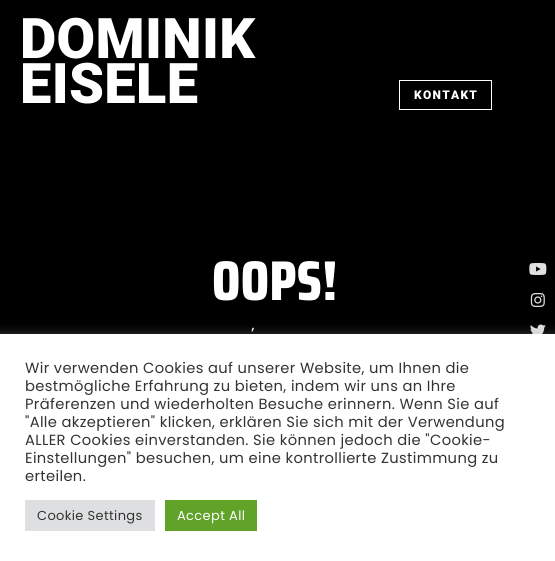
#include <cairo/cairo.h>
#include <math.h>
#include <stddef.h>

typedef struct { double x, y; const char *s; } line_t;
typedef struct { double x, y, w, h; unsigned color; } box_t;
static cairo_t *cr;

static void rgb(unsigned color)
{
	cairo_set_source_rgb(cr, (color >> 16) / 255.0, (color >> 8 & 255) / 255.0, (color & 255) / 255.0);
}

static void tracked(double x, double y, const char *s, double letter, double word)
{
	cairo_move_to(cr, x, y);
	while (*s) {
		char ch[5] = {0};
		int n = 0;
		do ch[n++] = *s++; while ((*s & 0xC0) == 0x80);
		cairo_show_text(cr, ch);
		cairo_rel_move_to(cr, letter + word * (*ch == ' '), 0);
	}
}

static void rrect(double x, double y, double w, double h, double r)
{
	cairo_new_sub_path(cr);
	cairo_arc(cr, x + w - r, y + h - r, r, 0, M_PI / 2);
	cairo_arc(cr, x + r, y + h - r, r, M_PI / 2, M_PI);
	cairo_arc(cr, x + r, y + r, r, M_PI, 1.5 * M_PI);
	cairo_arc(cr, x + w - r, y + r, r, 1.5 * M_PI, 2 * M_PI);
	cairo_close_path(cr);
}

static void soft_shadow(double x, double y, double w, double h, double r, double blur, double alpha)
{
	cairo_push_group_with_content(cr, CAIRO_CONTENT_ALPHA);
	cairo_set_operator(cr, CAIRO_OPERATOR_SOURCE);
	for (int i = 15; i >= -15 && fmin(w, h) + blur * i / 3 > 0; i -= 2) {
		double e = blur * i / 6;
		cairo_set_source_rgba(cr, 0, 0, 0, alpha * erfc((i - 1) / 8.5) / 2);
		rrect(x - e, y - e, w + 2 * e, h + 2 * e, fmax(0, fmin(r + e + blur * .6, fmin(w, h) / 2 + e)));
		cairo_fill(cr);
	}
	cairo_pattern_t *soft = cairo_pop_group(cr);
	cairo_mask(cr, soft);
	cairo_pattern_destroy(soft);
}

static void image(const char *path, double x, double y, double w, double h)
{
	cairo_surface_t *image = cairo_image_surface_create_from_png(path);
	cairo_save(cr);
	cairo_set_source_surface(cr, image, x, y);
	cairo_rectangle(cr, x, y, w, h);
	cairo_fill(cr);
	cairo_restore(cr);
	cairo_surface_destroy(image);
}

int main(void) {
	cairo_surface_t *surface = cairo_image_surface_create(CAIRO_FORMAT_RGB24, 555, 561);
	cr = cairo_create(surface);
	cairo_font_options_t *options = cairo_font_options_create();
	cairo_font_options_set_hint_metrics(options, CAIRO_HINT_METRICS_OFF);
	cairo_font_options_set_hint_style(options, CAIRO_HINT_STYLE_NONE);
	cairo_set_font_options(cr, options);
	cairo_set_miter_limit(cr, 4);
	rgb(0x000000);
	cairo_paint(cr);
	cairo_rectangle(cr, 399.5, 80.5, 92, 29);
	rgb(0xffffff);
	cairo_set_line_width(cr, 1);
	cairo_stroke(cr);
	image("img/1.png", 529, 263, 18, 12);
	image("img/2.png", 530, 293, 15, 14);
	image("img/3.png", 530, 324, 16, 10);
	rgb(0xacabab);
	soft_shadow(0, 333, 555, 227, 0, 5, 0.3);
	{
		static const box_t items[] = {
			{0, 334, 555, 227, 0xffffff},
			{25, 500, 130, 31, 0xdedfe0},
			{165, 500, 92, 31, 0x61a229},
		};
		for (size_t i = 0; i < sizeof items / sizeof *items; i++) {
			rgb(items[i].color);
			cairo_rectangle(cr, items[i].x, items[i].y, items[i].w, items[i].h);
			cairo_fill(cr);
		}
	}
	cairo_select_font_face(cr, "Roboto Black", CAIRO_FONT_SLANT_NORMAL, CAIRO_FONT_WEIGHT_NORMAL);
	cairo_set_font_size(cr, 56);
	rgb(0xffffff);
	tracked(20, 58, "DOMINIK", 0.35, 0);
	tracked(20, 103, "EISELE", 0.35, 0);
	cairo_set_font_size(cr, 12);
	tracked(414, 99, "KONTAKT", 1.25, 0);
	cairo_select_font_face(cr, "Saira Condensed ExtraBold", CAIRO_FONT_SLANT_NORMAL, CAIRO_FONT_WEIGHT_NORMAL);
	cairo_set_font_size(cr, 56);
	tracked(212, 300, "OOPS!", 0.35, 0);
	cairo_select_font_face(cr, "Poppins", CAIRO_FONT_SLANT_NORMAL, CAIRO_FONT_WEIGHT_NORMAL);
	cairo_set_font_size(cr, 16);
	tracked(251, 339, "’", 0.35, 0);
	cairo_set_font_size(cr, 14.7);
	rgb(0x333333);
	{
		static const line_t items[] = {
			{25, 373, "Wir verwenden Cookies auf unserer Website, um Ihnen die"},
			{25, 391, "bestmögliche Erfahrung zu bieten, indem wir uns an Ihre"},
			{25, 409, "Präferenzen und wiederholten Besuche erinnern. Wenn Sie auf"},
			{25, 427, "\"Alle akzeptieren\" klicken, erklären Sie sich mit der Verwendung"},
			{25, 445, "ALLER Cookies einverstanden. Sie können jedoch die \"Cookie-"},
			{25, 463, "Einstellungen\" besuchen, um eine kontrollierte Zustimmung zu"},
			{25, 481, "erteilen."},
		};
		for (size_t i = 0; i < sizeof items / sizeof *items; i++) {
			tracked(items[i].x, items[i].y, items[i].s, 0.35, 0);
		}
	}
	cairo_set_font_size(cr, 13);
	tracked(37, 520, "Cookie Settings", 0.35, 0);
	rgb(0xffffff);
	tracked(177, 520, "Accept All", 0.35, 0);
	cairo_surface_write_to_png(surface, "page.png");
	cairo_font_options_destroy(options);
	cairo_destroy(cr);
	cairo_surface_destroy(surface);
	return 0;
}
